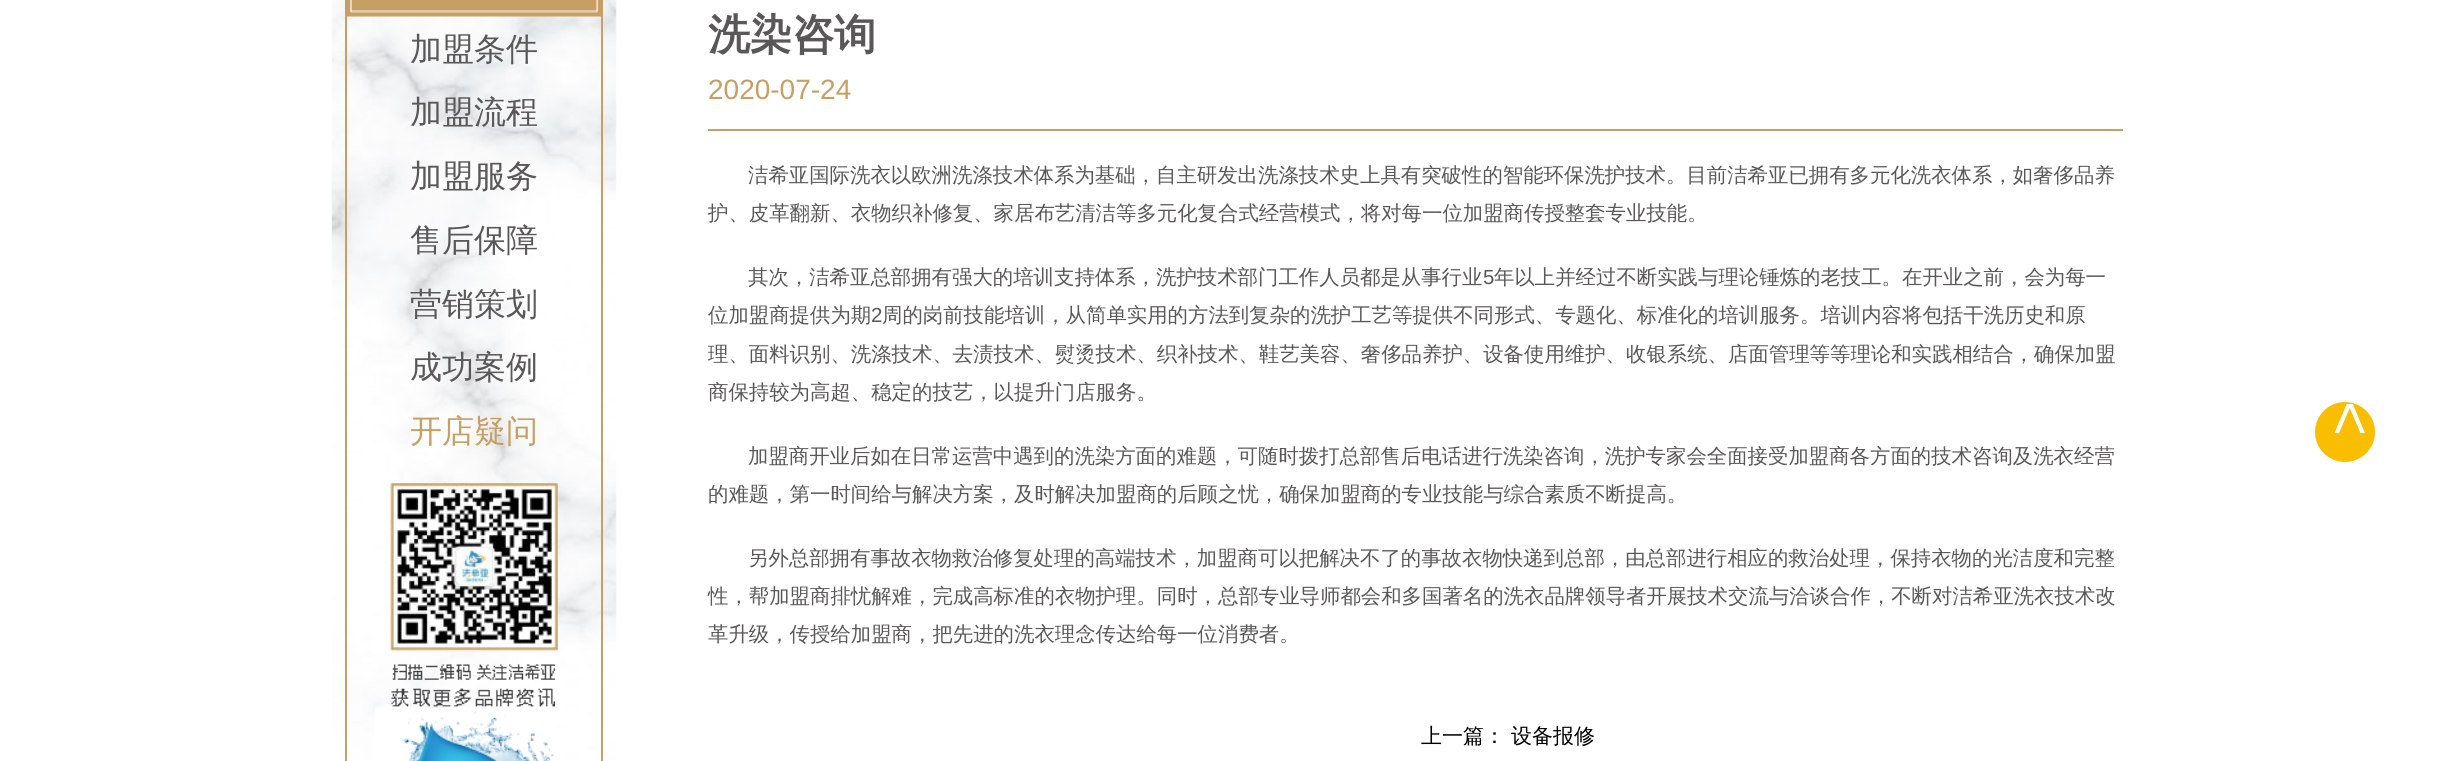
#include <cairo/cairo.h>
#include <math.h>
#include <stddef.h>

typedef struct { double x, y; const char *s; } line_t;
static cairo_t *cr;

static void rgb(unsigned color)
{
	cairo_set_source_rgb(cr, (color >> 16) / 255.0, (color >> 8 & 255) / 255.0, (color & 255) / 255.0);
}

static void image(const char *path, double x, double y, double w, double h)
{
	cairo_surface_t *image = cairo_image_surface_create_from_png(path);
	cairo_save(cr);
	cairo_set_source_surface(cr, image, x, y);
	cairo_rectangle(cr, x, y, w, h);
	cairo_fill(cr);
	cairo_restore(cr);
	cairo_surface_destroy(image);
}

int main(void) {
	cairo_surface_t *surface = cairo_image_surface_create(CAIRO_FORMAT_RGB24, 2447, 761);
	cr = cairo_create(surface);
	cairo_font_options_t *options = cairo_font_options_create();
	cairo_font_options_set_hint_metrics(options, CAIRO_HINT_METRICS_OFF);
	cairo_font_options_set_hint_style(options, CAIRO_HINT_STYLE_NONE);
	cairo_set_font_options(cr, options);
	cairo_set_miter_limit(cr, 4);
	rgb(0xffffff);
	cairo_paint(cr);
	image("img/1.png", 331, 0, 286, 761);
	cairo_rectangle(cr, 346, -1, 256, 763);
	rgb(0xc79f62);
	cairo_stroke(cr);
	image("img/2.png", 347, 0, 254, 17);
	image("img/3.png", 390, 483, 168, 168);
	image("img/4.png", 391, 664, 164, 43);
	image("img/5.png", 375, 706, 180, 55);
	cairo_rectangle(cr, 708, 129, 1415, 2);
	cairo_fill(cr);
	rgb(0xf9be00);
	cairo_arc(cr, 2345, 432, 30, 0, 2 * M_PI);
	cairo_fill(cr);
	cairo_select_font_face(cr, "WenQuanYi Zen Hei Medium", CAIRO_FONT_SLANT_NORMAL, CAIRO_FONT_WEIGHT_NORMAL);
	cairo_set_font_size(cr, 32);
	rgb(0x595757);
	{
		static const line_t items[] = {
			{410, 60, "加盟条件"},
			{410, 123, "加盟流程"},
			{410, 187, "加盟服务"},
			{410, 251, "售后保障"},
			{410, 315, "营销策划"},
			{410, 378, "成功案例"},
		};
		for (size_t i = 0; i < sizeof items / sizeof *items; i++) {
			cairo_move_to(cr, items[i].x, items[i].y);
			cairo_show_text(cr, items[i].s);
		}
	}
	rgb(0xc79f62);
	cairo_move_to(cr, 410, 442);
	cairo_show_text(cr, "开店疑问");
	cairo_select_font_face(cr, "WenQuanYi Zen Hei", CAIRO_FONT_SLANT_NORMAL, CAIRO_FONT_WEIGHT_BOLD);
	cairo_set_font_size(cr, 42);
	rgb(0x595757);
	cairo_move_to(cr, 708, 49);
	cairo_show_text(cr, "洗染咨询");
	cairo_select_font_face(cr, "Liberation Sans", CAIRO_FONT_SLANT_NORMAL, CAIRO_FONT_WEIGHT_NORMAL);
	cairo_set_font_size(cr, 28);
	rgb(0xc79f62);
	cairo_move_to(cr, 708, 99);
	cairo_show_text(cr, "2020-07-24");
	cairo_select_font_face(cr, "WenQuanYi Zen Hei Medium", CAIRO_FONT_SLANT_NORMAL, CAIRO_FONT_WEIGHT_NORMAL);
	cairo_set_font_size(cr, 20.4);
	rgb(0x595757);
	{
		static const line_t items[] = {
			{748, 182, "洁希亚国际洗衣以欧洲洗涤技术体系为基础，自主研发出洗涤技术史上具有突破性的智能环保洗护技术。目前洁希亚已拥有多元化洗衣体系，如奢侈品养"},
			{708, 220, "护、皮革翻新、衣物织补修复、家居布艺清洁等多元化复合式经营模式，将对每一位加盟商传授整套专业技能。"},
			{748, 284, "其次，洁希亚总部拥有强大的培训支持体系，洗护技术部门工作人员都是从事行业"},
		};
		for (size_t i = 0; i < sizeof items / sizeof *items; i++) {
			cairo_move_to(cr, items[i].x, items[i].y);
			cairo_show_text(cr, items[i].s);
		}
	}
	cairo_select_font_face(cr, "Liberation Sans", CAIRO_FONT_SLANT_NORMAL, CAIRO_FONT_WEIGHT_NORMAL);
	cairo_move_to(cr, 1483, 284);
	cairo_show_text(cr, "5");
	cairo_select_font_face(cr, "WenQuanYi Zen Hei Medium", CAIRO_FONT_SLANT_NORMAL, CAIRO_FONT_WEIGHT_NORMAL);
	cairo_move_to(cr, 1494, 284);
	cairo_show_text(cr, "年以上并经过不断实践与理论锤炼的老技工。在开业之前，会为每一");
	cairo_move_to(cr, 708, 322);
	cairo_show_text(cr, "位加盟商提供为期");
	cairo_select_font_face(cr, "Liberation Sans", CAIRO_FONT_SLANT_NORMAL, CAIRO_FONT_WEIGHT_NORMAL);
	cairo_move_to(cr, 871, 322);
	cairo_show_text(cr, "2");
	cairo_select_font_face(cr, "WenQuanYi Zen Hei Medium", CAIRO_FONT_SLANT_NORMAL, CAIRO_FONT_WEIGHT_NORMAL);
	{
		static const line_t items[] = {
			{882, 322, "周的岗前技能培训，从简单实用的方法到复杂的洗护工艺等提供不同形式、专题化、标准化的培训服务。培训内容将包括干洗历史和原"},
			{708, 361, "理、面料识别、洗涤技术、去渍技术、熨烫技术、织补技术、鞋艺美容、奢侈品养护、设备使用维护、收银系统、店面管理等等理论和实践相结合，确保加盟"},
			{708, 399, "商保持较为高超、稳定的技艺，以提升门店服务。"},
			{748, 463, "加盟商开业后如在日常运营中遇到的洗染方面的难题，可随时拨打总部售后电话进行洗染咨询，洗护专家会全面接受加盟商各方面的技术咨询及洗衣经营"},
			{708, 501, "的难题，第一时间给与解决方案，及时解决加盟商的后顾之忧，确保加盟商的专业技能与综合素质不断提高。"},
			{748, 565, "另外总部拥有事故衣物救治修复处理的高端技术，加盟商可以把解决不了的事故衣物快递到总部，由总部进行相应的救治处理，保持衣物的光洁度和完整"},
			{708, 603, "性，帮加盟商排忧解难，完成高标准的衣物护理。同时，总部专业导师都会和多国著名的洗衣品牌领导者开展技术交流与洽谈合作，不断对洁希亚洗衣技术改"},
			{708, 641, "革升级，传授给加盟商，把先进的洗衣理念传达给每一位消费者。"},
		};
		for (size_t i = 0; i < sizeof items / sizeof *items; i++) {
			cairo_move_to(cr, items[i].x, items[i].y);
			cairo_show_text(cr, items[i].s);
		}
	}
	cairo_set_font_size(cr, 21);
	rgb(0x000000);
	cairo_move_to(cr, 1421, 743);
	cairo_show_text(cr, "上一篇：");
	cairo_move_to(cr, 1511, 743);
	cairo_show_text(cr, "设备报修");
	cairo_select_font_face(cr, "Liberation Sans", CAIRO_FONT_SLANT_NORMAL, CAIRO_FONT_WEIGHT_NORMAL);
	cairo_set_font_size(cr, 60);
	rgb(0xffffff);
	cairo_save(cr);
	cairo_translate(cr, 2330, 401);
	cairo_rotate(cr, 90 * M_PI / 180);
	cairo_move_to(cr, 0, 0);
	cairo_show_text(cr, "<");
	cairo_restore(cr);
	cairo_surface_write_to_png(surface, "page.png");
	cairo_font_options_destroy(options);
	cairo_destroy(cr);
	cairo_surface_destroy(surface);
	return 0;
}
